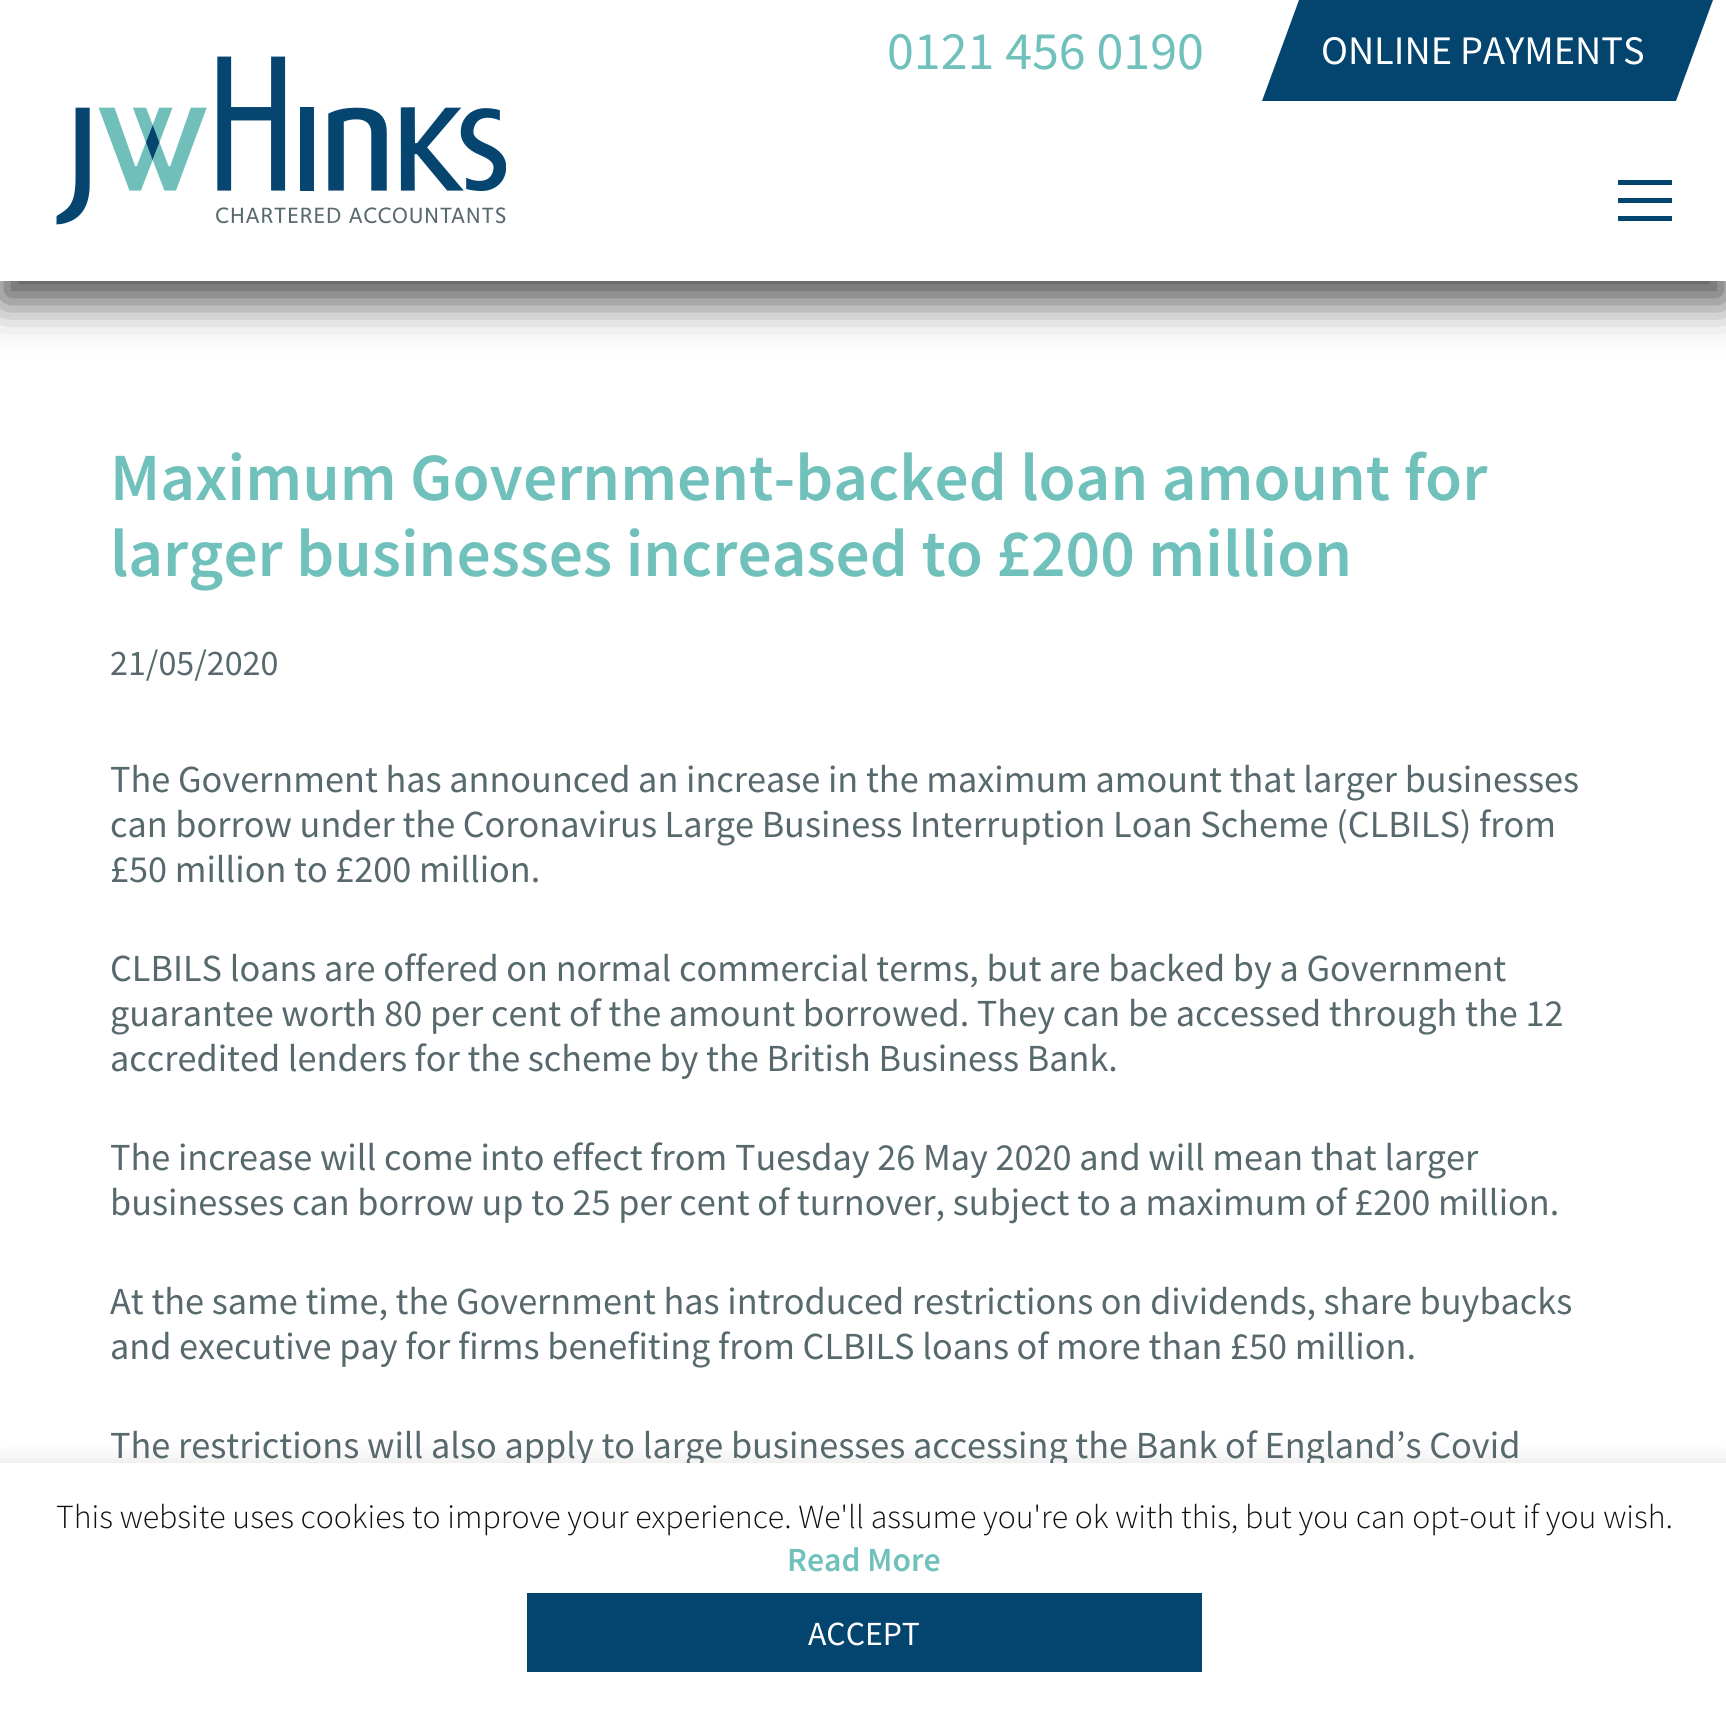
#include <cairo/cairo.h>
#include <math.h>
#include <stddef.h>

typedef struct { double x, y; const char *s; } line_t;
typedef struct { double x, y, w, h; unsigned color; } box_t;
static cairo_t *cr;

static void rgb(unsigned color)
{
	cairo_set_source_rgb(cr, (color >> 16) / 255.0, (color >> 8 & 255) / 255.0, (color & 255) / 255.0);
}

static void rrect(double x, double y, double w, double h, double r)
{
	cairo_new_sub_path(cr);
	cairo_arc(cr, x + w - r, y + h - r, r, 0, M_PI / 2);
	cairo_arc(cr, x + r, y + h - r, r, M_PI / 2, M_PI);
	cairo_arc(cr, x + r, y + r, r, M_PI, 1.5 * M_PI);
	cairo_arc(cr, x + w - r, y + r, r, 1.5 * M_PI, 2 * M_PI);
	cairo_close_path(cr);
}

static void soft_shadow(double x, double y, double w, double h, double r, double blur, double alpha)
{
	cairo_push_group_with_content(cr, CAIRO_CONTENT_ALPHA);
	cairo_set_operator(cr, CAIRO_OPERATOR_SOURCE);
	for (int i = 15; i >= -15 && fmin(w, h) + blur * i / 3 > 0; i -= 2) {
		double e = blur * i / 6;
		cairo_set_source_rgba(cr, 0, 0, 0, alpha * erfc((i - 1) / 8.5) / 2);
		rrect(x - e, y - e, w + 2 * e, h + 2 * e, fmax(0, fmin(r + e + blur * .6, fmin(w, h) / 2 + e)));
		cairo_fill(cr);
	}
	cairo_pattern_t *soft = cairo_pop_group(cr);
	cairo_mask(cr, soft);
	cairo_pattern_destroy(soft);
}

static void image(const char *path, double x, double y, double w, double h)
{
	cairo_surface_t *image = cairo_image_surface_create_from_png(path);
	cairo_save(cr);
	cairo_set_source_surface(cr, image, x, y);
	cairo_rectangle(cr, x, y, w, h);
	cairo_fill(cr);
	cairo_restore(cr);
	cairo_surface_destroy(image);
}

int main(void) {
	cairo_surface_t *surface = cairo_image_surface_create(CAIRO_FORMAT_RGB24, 1726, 1712);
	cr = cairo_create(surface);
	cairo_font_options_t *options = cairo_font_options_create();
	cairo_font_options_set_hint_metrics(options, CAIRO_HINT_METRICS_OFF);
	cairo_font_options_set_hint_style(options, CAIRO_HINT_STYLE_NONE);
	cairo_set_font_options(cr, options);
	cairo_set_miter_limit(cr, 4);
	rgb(0xffffff);
	cairo_paint(cr);
	rgb(0x181717);
	soft_shadow(0, 20, 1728, 282, 0, 21.5, 0.75);
	rgb(0xffffff);
	cairo_rectangle(cr, 0, 0, 1726, 281);
	cairo_fill(cr);
	rgb(0x044570);
	cairo_new_path(cr);
	cairo_move_to(cr, 1299, 0);
	cairo_line_to(cr, 1713, 0);
	cairo_line_to(cr, 1676, 101);
	cairo_line_to(cr, 1262, 101);
	cairo_close_path(cr);
	cairo_fill(cr);
	image("img/1.png", 56, 56, 450, 169);
	{
		static const box_t items[] = {
			{1618, 180, 54, 5, 0x044570},
			{1618, 198, 54, 5, 0x044570},
			{1618, 216, 54, 5, 0x044570},
		};
		for (size_t i = 0; i < sizeof items / sizeof *items; i++) {
			rgb(items[i].color);
			cairo_rectangle(cr, items[i].x, items[i].y, items[i].w, items[i].h);
			cairo_fill(cr);
		}
	}
	rgb(0xacabab);
	soft_shadow(0, 1460, 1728, 250, 0, 11, 0.3);
	cairo_select_font_face(cr, "Source Sans Pro", CAIRO_FONT_SLANT_NORMAL, CAIRO_FONT_WEIGHT_NORMAL);
	cairo_set_font_size(cr, 54);
	rgb(0x70c0bb);
	cairo_move_to(cr, 887, 69);
	cairo_show_text(cr, "0121 456 0190");
	cairo_set_font_size(cr, 40.5);
	rgb(0xffffff);
	cairo_move_to(cr, 1321, 64);
	cairo_show_text(cr, "ONLINE PAYMENTS");
	cairo_select_font_face(cr, "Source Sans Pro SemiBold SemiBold", CAIRO_FONT_SLANT_NORMAL, CAIRO_FONT_WEIGHT_NORMAL);
	cairo_set_font_size(cr, 67.5);
	rgb(0x70c0bb);
	cairo_move_to(cr, 110, 500);
	cairo_show_text(cr, "Maximum Government-backed loan amount for");
	cairo_move_to(cr, 110, 576);
	cairo_show_text(cr, "larger businesses increased to £200 million");
	cairo_select_font_face(cr, "Source Sans Pro", CAIRO_FONT_SLANT_NORMAL, CAIRO_FONT_WEIGHT_NORMAL);
	cairo_set_font_size(cr, 36);
	rgb(0x57696d);
	cairo_move_to(cr, 110, 675);
	cairo_show_text(cr, "21/05/2020");
	cairo_set_font_size(cr, 38.25);
	{
		static const line_t items[] = {
			{110, 792, "The Government has announced an increase in the maximum amount that larger businesses"},
			{110, 837, "can borrow under the Coronavirus Large Business Interruption Loan Scheme (CLBILS) from"},
			{110, 882, "£50 million to £200 million."},
			{110, 981, "CLBILS loans are offered on normal commercial terms, but are backed by a Government"},
			{110, 1026, "guarantee worth 80 per cent of the amount borrowed. They can be accessed through the 12"},
			{110, 1071, "accredited lenders for the scheme by the British Business Bank."},
			{110, 1170, "The increase will come into effect from Tuesday 26 May 2020 and will mean that larger"},
			{110, 1215, "businesses can borrow up to 25 per cent of turnover, subject to a maximum of £200 million."},
			{110, 1314, "At the same time, the Government has introduced restrictions on dividends, share buybacks"},
			{110, 1359, "and executive pay for firms benefiting from CLBILS loans of more than £50 million."},
			{110, 1458, "The restrictions will also apply to large businesses accessing the Bank of England’s Covid"},
		};
		for (size_t i = 0; i < sizeof items / sizeof *items; i++) {
			cairo_move_to(cr, items[i].x, items[i].y);
			cairo_show_text(cr, items[i].s);
		}
	}
	rgb(0xffffff);
	cairo_rectangle(cr, 0, 1463, 1726, 249);
	cairo_fill(cr);
	cairo_select_font_face(cr, "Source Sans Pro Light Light", CAIRO_FONT_SLANT_NORMAL, CAIRO_FONT_WEIGHT_NORMAL);
	cairo_set_font_size(cr, 33.75);
	rgb(0x111111);
	cairo_move_to(cr, 56, 1528);
	cairo_show_text(cr, "This website uses cookies to improve your experience. We'll assume you're ok with this, but you can opt-out if you wish.");
	cairo_select_font_face(cr, "Source Sans Pro SemiBold SemiBold", CAIRO_FONT_SLANT_NORMAL, CAIRO_FONT_WEIGHT_NORMAL);
	rgb(0x70c0bb);
	cairo_move_to(cr, 787, 1571);
	cairo_show_text(cr, "Read More");
	rgb(0x044570);
	cairo_rectangle(cr, 527, 1593, 675, 79);
	cairo_fill(cr);
	cairo_select_font_face(cr, "Source Sans Pro", CAIRO_FONT_SLANT_NORMAL, CAIRO_FONT_WEIGHT_NORMAL);
	rgb(0xffffff);
	cairo_move_to(cr, 808, 1645);
	cairo_show_text(cr, "ACCEPT");
	cairo_surface_write_to_png(surface, "page.png");
	cairo_font_options_destroy(options);
	cairo_destroy(cr);
	cairo_surface_destroy(surface);
	return 0;
}
